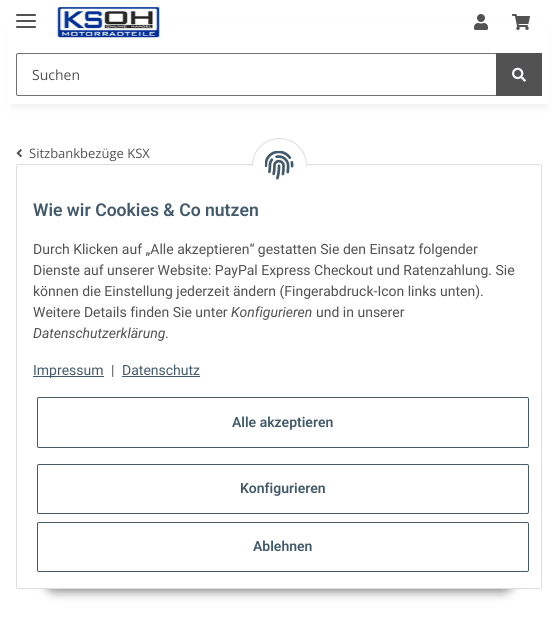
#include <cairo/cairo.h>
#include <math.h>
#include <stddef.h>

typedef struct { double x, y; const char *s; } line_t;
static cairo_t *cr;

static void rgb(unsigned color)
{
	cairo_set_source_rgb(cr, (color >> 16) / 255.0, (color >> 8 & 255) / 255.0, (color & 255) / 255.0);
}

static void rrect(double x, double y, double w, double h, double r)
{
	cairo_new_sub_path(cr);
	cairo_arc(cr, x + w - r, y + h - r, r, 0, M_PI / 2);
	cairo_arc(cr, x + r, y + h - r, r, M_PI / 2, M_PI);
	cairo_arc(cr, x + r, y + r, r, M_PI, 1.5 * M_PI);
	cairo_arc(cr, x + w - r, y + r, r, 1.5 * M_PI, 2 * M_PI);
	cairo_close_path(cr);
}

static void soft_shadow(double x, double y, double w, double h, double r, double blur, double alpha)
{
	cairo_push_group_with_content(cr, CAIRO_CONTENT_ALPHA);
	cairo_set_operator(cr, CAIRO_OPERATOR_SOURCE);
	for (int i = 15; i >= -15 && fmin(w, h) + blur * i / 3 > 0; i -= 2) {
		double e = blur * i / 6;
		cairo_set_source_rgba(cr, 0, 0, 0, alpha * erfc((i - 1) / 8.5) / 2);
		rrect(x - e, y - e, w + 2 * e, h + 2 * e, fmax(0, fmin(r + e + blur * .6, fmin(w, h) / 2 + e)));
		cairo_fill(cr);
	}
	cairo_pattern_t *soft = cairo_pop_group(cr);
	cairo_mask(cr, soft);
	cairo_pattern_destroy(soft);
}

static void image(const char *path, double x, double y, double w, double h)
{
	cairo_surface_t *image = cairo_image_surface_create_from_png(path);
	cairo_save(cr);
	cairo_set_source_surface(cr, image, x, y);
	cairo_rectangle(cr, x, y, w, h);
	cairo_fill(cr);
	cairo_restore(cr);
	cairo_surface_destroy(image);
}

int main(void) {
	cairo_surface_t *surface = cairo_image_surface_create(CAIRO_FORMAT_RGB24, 558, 621);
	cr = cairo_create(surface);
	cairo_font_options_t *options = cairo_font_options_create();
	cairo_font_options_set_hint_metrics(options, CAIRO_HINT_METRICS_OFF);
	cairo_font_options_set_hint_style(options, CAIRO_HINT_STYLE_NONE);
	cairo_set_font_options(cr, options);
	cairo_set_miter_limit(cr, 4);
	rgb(0xffffff);
	cairo_paint(cr);
	rgb(0x000000);
	soft_shadow(12, 28, 534, 80, 0, 4.5, 0.06);
	rgb(0xffffff);
	cairo_rectangle(cr, 8, 24, 542, 80);
	cairo_fill(cr);
	rgb(0x525252);
	rrect(16, 20, 20, 2, 1);
	cairo_fill(cr);
	rrect(16, 14, 20, 2, 1);
	cairo_fill(cr);
	rrect(16, 26, 20, 2, 1);
	cairo_fill(cr);
	image("img/1.png", 56, 6, 104, 32);
	image("img/2.png", 474, 14, 14, 16);
	image("img/3.png", 512, 14, 18, 16);
	rrect(16.5, 53.5, 480, 42, 1.5);
	rgb(0x707070);
	cairo_set_line_width(cr, 1);
	cairo_stroke(cr);
	rgb(0x525252);
	cairo_rectangle(cr, 496, 53, 46, 43);
	cairo_fill(cr);
	image("img/4.png", 512, 67, 14, 15);
	image("img/5.png", 16, 149, 6, 9);
	rgb(0x000000);
	soft_shadow(43, 560, 472, 32, 16, 5, 0.45);
	rgb(0xffffff);
	rrect(16.5, 164.5, 525, 424, 1.5);
	cairo_fill_preserve(cr);
	rgb(0xdddddd);
	cairo_stroke(cr);
	rgb(0xffffff);
	cairo_arc(cr, 279.5, 165.5, 27, 0, 2 * M_PI);
	cairo_fill_preserve(cr);
	rgb(0xdddddd);
	cairo_stroke(cr);
	rgb(0xffffff);
	cairo_rectangle(cr, 252, 166, 55, 27);
	cairo_fill(cr);
	image("img/6.png", 265, 151, 29, 29);
	rgb(0x435a6b);
	cairo_rectangle(cr, 33, 376, 71, 1);
	cairo_fill(cr);
	cairo_rectangle(cr, 122, 376, 78, 1);
	cairo_fill(cr);
	rrect(37.5, 397.5, 491, 50, 1.5);
	cairo_stroke(cr);
	rrect(37.5, 464.5, 491, 49, 1.5);
	cairo_stroke(cr);
	rrect(37.5, 522.5, 491, 49, 1.5);
	cairo_stroke(cr);
	cairo_select_font_face(cr, "Open Sans", CAIRO_FONT_SLANT_NORMAL, CAIRO_FONT_WEIGHT_NORMAL);
	cairo_set_font_size(cr, 14);
	rgb(0x525252);
	cairo_move_to(cr, 32, 80);
	cairo_show_text(cr, "Suchen");
	cairo_set_font_size(cr, 13);
	cairo_move_to(cr, 29, 158);
	cairo_show_text(cr, "Sitzbankbezüge KSX");
	cairo_select_font_face(cr, "Roboto SemiBold", CAIRO_FONT_SLANT_NORMAL, CAIRO_FONT_WEIGHT_NORMAL);
	cairo_set_font_size(cr, 17.6);
	rgb(0x435a6b);
	cairo_move_to(cr, 33, 216);
	cairo_show_text(cr, "Wie wir Cookies & Co nutzen");
	cairo_select_font_face(cr, "Roboto", CAIRO_FONT_SLANT_NORMAL, CAIRO_FONT_WEIGHT_NORMAL);
	cairo_set_font_size(cr, 14);
	rgb(0x525252);
	{
		static const line_t items[] = {
			{33, 254, "Durch Klicken auf „Alle akzeptieren“ gestatten Sie den Einsatz folgender"},
			{33, 275, "Dienste auf unserer Website: PayPal Express Checkout und Ratenzahlung. Sie"},
			{33, 296, "können die Einstellung jederzeit ändern (Fingerabdruck-Icon links unten)."},
			{33, 317, "Weitere Details finden Sie unter"},
		};
		for (size_t i = 0; i < sizeof items / sizeof *items; i++) {
			cairo_move_to(cr, items[i].x, items[i].y);
			cairo_show_text(cr, items[i].s);
		}
	}
	cairo_select_font_face(cr, "Roboto", CAIRO_FONT_SLANT_ITALIC, CAIRO_FONT_WEIGHT_NORMAL);
	cairo_move_to(cr, 231, 317);
	cairo_show_text(cr, "Konfigurieren");
	cairo_select_font_face(cr, "Roboto", CAIRO_FONT_SLANT_NORMAL, CAIRO_FONT_WEIGHT_NORMAL);
	cairo_move_to(cr, 316, 317);
	cairo_show_text(cr, "und in unserer");
	cairo_select_font_face(cr, "Roboto", CAIRO_FONT_SLANT_ITALIC, CAIRO_FONT_WEIGHT_NORMAL);
	cairo_move_to(cr, 33, 338);
	cairo_show_text(cr, "Datenschutzerklärung");
	cairo_select_font_face(cr, "Roboto", CAIRO_FONT_SLANT_NORMAL, CAIRO_FONT_WEIGHT_NORMAL);
	cairo_move_to(cr, 165, 338);
	cairo_show_text(cr, ".");
	rgb(0x435a6b);
	cairo_move_to(cr, 33, 375);
	cairo_show_text(cr, "Impressum");
	rgb(0x525252);
	cairo_move_to(cr, 111, 375);
	cairo_show_text(cr, "|");
	rgb(0x435a6b);
	cairo_move_to(cr, 122, 375);
	cairo_show_text(cr, "Datenschutz");
	cairo_select_font_face(cr, "Roboto SemiBold", CAIRO_FONT_SLANT_NORMAL, CAIRO_FONT_WEIGHT_NORMAL);
	{
		static const line_t items[] = {
			{232, 427, "Alle akzeptieren"},
			{240, 493, "Konfigurieren"},
			{253, 551, "Ablehnen"},
		};
		for (size_t i = 0; i < sizeof items / sizeof *items; i++) {
			cairo_move_to(cr, items[i].x, items[i].y);
			cairo_show_text(cr, items[i].s);
		}
	}
	cairo_surface_write_to_png(surface, "page.png");
	cairo_font_options_destroy(options);
	cairo_destroy(cr);
	cairo_surface_destroy(surface);
	return 0;
}
